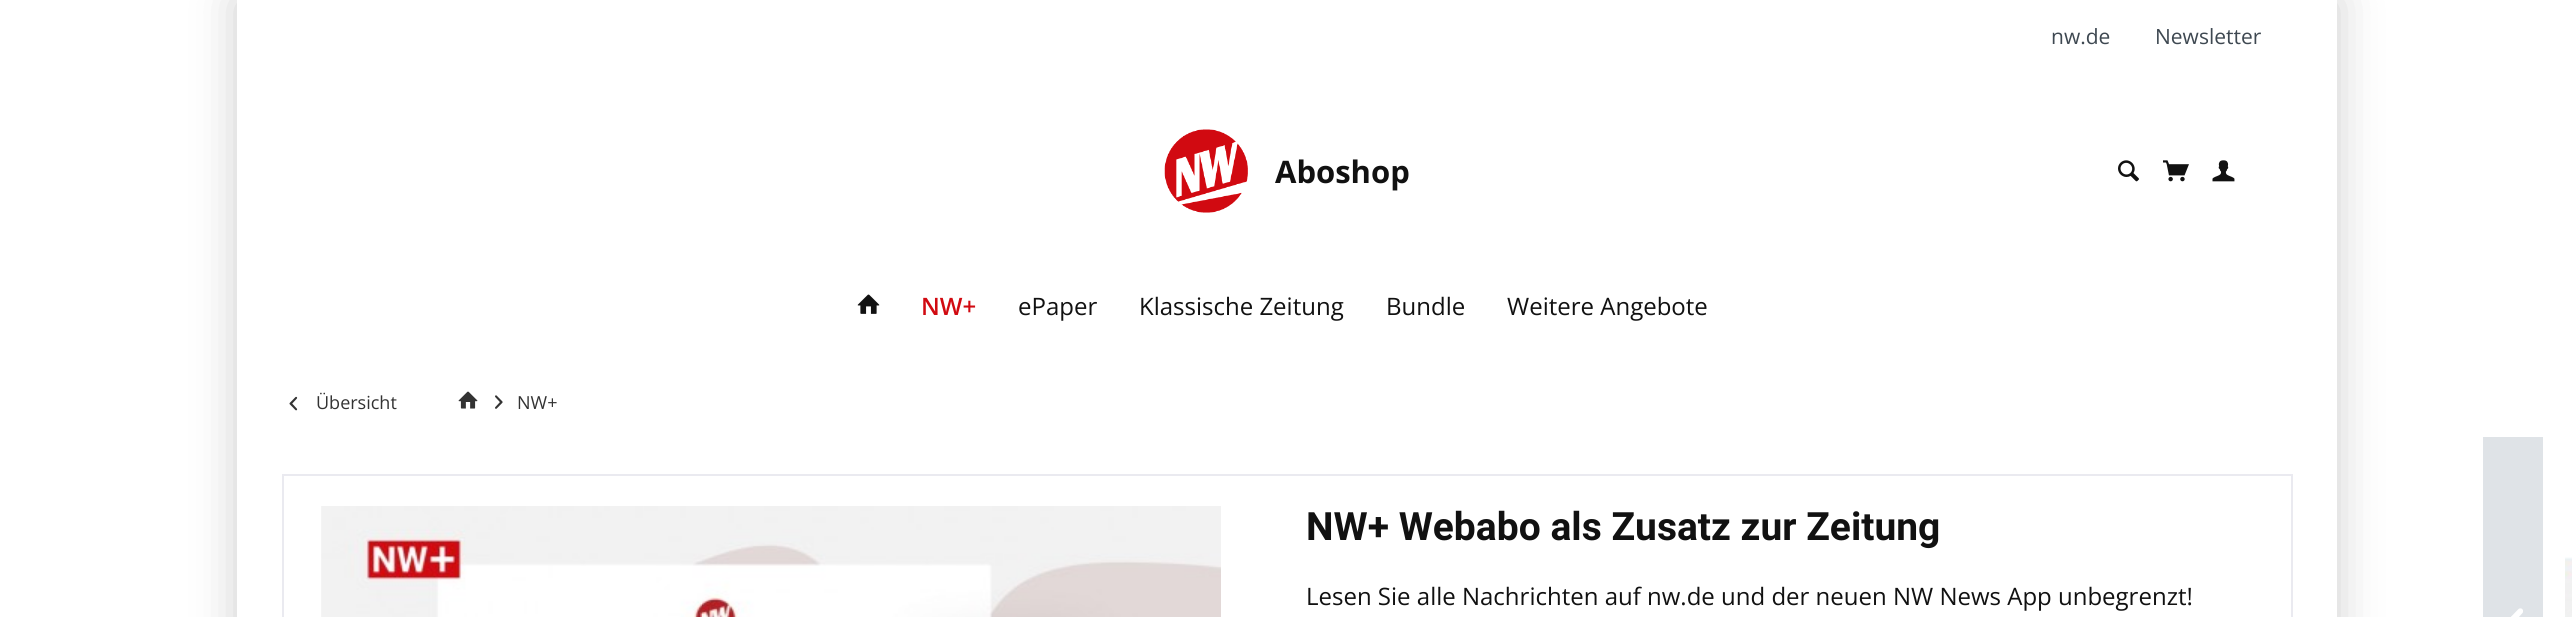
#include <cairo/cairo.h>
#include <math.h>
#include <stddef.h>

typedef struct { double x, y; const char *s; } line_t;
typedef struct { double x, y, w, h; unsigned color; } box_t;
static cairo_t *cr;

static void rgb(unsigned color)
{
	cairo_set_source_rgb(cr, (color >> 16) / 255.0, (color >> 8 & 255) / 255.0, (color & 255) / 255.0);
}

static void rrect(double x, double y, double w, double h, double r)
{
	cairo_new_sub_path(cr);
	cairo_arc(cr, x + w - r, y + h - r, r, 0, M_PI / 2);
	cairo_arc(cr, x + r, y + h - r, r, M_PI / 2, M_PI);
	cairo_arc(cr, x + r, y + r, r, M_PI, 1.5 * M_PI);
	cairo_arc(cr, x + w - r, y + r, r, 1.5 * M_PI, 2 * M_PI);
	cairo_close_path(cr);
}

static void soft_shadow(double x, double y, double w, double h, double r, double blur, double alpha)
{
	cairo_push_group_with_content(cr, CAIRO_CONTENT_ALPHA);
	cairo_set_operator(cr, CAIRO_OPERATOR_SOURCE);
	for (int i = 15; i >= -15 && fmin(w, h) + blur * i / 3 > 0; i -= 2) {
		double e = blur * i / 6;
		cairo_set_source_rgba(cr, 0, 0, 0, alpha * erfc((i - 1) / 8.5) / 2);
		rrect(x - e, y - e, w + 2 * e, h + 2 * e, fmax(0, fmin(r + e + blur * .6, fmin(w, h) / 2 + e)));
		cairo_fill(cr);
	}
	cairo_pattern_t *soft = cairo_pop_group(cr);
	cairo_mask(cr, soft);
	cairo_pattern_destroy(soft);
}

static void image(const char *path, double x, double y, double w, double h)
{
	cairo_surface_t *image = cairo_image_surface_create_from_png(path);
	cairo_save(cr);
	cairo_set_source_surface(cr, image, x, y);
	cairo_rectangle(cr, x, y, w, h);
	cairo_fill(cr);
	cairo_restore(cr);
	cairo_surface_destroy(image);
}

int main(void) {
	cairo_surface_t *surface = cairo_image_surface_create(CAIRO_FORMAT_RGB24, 2572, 617);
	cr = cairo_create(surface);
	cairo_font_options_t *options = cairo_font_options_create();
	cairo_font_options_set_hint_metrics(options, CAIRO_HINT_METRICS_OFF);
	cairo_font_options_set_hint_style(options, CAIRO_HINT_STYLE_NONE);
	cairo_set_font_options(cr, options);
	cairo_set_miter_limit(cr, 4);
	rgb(0xffffff);
	cairo_paint(cr);
	cairo_save(cr);
	cairo_set_fill_rule(cr, CAIRO_FILL_RULE_EVEN_ODD);
	cairo_new_path(cr);
	cairo_move_to(cr, 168, 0);
	cairo_line_to(cr, 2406, 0);
	cairo_line_to(cr, 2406, 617);
	cairo_line_to(cr, 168, 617);
	cairo_close_path(cr);
	cairo_move_to(cr, 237, 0);
	cairo_line_to(cr, 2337, 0);
	cairo_line_to(cr, 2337, 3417);
	cairo_line_to(cr, 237, 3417);
	cairo_close_path(cr);
	cairo_clip(cr);
	rgb(0x000000);
	soft_shadow(237, 0, 2100, 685, 0, 22.5, 0.2);
	cairo_restore(cr);
	image("img/1.png", 1164, 129, 84, 84);
	image("img/2.png", 2118, 160, 21, 22);
	image("img/3.png", 2163, 160, 26, 22);
	image("img/4.png", 2212, 160, 23, 22);
	image("img/5.png", 857, 294, 23, 20);
	image("img/6.png", 289, 396, 9, 15);
	image("img/7.png", 458, 391, 20, 18);
	image("img/8.png", 495, 395, 8, 14);
	{
		static const box_t items[] = {
			{282, 474, 2011, 2, 0xeaeaf0},
			{2291, 476, 2, 141, 0xeaeaf0},
			{282, 476, 2, 141, 0xeaeaf0},
		};
		for (size_t i = 0; i < sizeof items / sizeof *items; i++) {
			rgb(items[i].color);
			cairo_rectangle(cr, items[i].x, items[i].y, items[i].w, items[i].h);
			cairo_fill(cr);
		}
	}
	image("img/9.png", 321, 506, 900, 111);
	rgb(0xdfe3e7);
	cairo_rectangle(cr, 2483, 437, 60, 180);
	cairo_fill(cr);
	image("img/10.png", 2511, 608, 12, 9);
	image("img/11.png", 2565, 557, 7, 60);
	cairo_select_font_face(cr, "Open Sans", CAIRO_FONT_SLANT_NORMAL, CAIRO_FONT_WEIGHT_NORMAL);
	cairo_set_font_size(cr, 21);
	rgb(0x3e4851);
	cairo_move_to(cr, 2051, 44);
	cairo_show_text(cr, "nw.de");
	cairo_move_to(cr, 2155, 44);
	cairo_show_text(cr, "Newsletter");
	cairo_select_font_face(cr, "Open Sans", CAIRO_FONT_SLANT_NORMAL, CAIRO_FONT_WEIGHT_BOLD);
	cairo_set_font_size(cr, 31);
	rgb(0x111111);
	cairo_move_to(cr, 1275, 183);
	cairo_show_text(cr, "Aboshop");
	cairo_select_font_face(cr, "Open Sans SemiBold", CAIRO_FONT_SLANT_NORMAL, CAIRO_FONT_WEIGHT_NORMAL);
	cairo_set_font_size(cr, 24);
	rgb(0xd10a11);
	cairo_move_to(cr, 921, 315);
	cairo_show_text(cr, "NW+");
	cairo_select_font_face(cr, "Open Sans", CAIRO_FONT_SLANT_NORMAL, CAIRO_FONT_WEIGHT_NORMAL);
	rgb(0x111111);
	{
		static const line_t items[] = {
			{1018, 315, "ePaper"},
			{1139, 315, "Klassische Zeitung"},
			{1386, 315, "Bundle"},
			{1507, 315, "Weitere Angebote"},
		};
		for (size_t i = 0; i < sizeof items / sizeof *items; i++) {
			cairo_move_to(cr, items[i].x, items[i].y);
			cairo_show_text(cr, items[i].s);
		}
	}
	cairo_set_font_size(cr, 18);
	rgb(0x333333);
	cairo_move_to(cr, 316, 409);
	cairo_show_text(cr, "Übersicht");
	cairo_move_to(cr, 517, 409);
	cairo_show_text(cr, "NW+");
	cairo_select_font_face(cr, "Roboto", CAIRO_FONT_SLANT_NORMAL, CAIRO_FONT_WEIGHT_BOLD);
	cairo_set_font_size(cr, 39);
	rgb(0x111111);
	cairo_move_to(cr, 1306, 540);
	cairo_show_text(cr, "NW+ Webabo als Zusatz zur Zeitung");
	cairo_select_font_face(cr, "Open Sans", CAIRO_FONT_SLANT_NORMAL, CAIRO_FONT_WEIGHT_NORMAL);
	cairo_set_font_size(cr, 24);
	cairo_move_to(cr, 1306, 605);
	cairo_show_text(cr, "Lesen Sie alle Nachrichten auf nw.de und der neuen NW News App unbegrenzt!");
	cairo_surface_write_to_png(surface, "page.png");
	cairo_font_options_destroy(options);
	cairo_destroy(cr);
	cairo_surface_destroy(surface);
	return 0;
}
